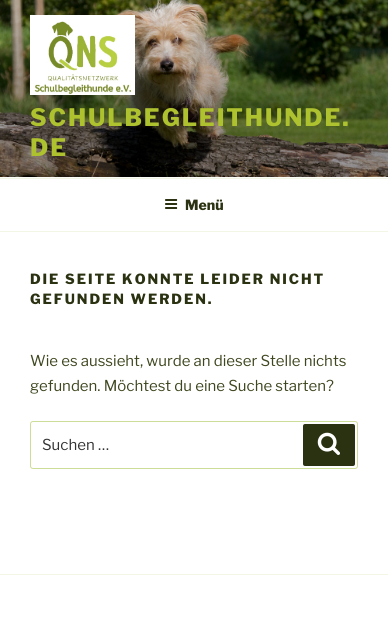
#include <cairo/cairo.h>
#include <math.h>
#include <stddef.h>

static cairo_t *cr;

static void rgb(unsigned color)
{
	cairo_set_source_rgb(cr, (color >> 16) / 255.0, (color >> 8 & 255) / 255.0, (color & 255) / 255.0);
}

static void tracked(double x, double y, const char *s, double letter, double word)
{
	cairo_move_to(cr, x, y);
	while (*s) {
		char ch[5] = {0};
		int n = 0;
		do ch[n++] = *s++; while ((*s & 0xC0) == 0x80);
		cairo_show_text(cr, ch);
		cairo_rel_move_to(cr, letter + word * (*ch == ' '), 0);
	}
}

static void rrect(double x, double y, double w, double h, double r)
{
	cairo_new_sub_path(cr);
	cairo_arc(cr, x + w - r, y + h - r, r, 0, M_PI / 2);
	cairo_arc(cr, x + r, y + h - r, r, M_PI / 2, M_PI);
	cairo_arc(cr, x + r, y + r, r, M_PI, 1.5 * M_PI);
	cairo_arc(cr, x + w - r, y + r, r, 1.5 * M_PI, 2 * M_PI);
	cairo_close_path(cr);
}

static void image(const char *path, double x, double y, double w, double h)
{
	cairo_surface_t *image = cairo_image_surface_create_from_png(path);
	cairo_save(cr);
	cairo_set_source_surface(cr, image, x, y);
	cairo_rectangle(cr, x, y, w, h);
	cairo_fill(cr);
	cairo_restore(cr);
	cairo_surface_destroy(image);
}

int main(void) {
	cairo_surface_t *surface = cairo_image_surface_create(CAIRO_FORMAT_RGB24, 388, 627);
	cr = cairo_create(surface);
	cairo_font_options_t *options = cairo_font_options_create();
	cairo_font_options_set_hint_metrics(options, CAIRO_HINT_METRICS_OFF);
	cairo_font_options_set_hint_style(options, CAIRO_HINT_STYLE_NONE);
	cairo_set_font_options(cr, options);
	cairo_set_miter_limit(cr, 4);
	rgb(0xffffff);
	cairo_paint(cr);
	rgb(0xfbfcf7);
	cairo_rectangle(cr, 0, 177, 388, 1);
	cairo_fill(cr);
	image("img/1.png", 0, 0, 388, 177);
	image("img/2.png", 30, 15, 105, 80);
	rgb(0xf2f6e4);
	cairo_rectangle(cr, 0, 178, 388, 1);
	cairo_fill(cr);
	cairo_rectangle(cr, 0, 231, 388, 1);
	cairo_fill(cr);
	image("img/3.png", 165, 199, 13, 10);
	rrect(30.5, 421.5, 327, 47, 2.5);
	rgb(0xcddd98);
	cairo_set_line_width(cr, 1);
	cairo_stroke(cr);
	rgb(0x2a3211);
	rrect(303, 424, 52, 42, 2);
	cairo_fill(cr);
	image("img/4.png", 317, 432, 23, 23);
	rgb(0xf2f6e4);
	cairo_rectangle(cr, 0, 574, 388, 1);
	cairo_fill(cr);
	cairo_select_font_face(cr, "Libre Franklin Thin", CAIRO_FONT_SLANT_NORMAL, CAIRO_FONT_WEIGHT_NORMAL);
	cairo_set_font_size(cr, 24);
	rgb(0xaec12e);
	tracked(30, 126, "SCHULBEGLEITHUNDE.", 1.9, 0);
	tracked(30, 156, "DE", 1.9, 0);
	cairo_set_font_size(cr, 14);
	rgb(0x2a3211);
	cairo_move_to(cr, 185, 210);
	cairo_show_text(cr, "Menü");
	tracked(30, 284, "DIE SEITE KONNTE LEIDER NICHT", 1.95, 0);
	tracked(30, 304, "GEFUNDEN WERDEN.", 1.95, 0);
	cairo_select_font_face(cr, "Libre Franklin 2 Thin", CAIRO_FONT_SLANT_NORMAL, CAIRO_FONT_WEIGHT_NORMAL);
	cairo_set_font_size(cr, 15);
	rgb(0x3e471f);
	cairo_move_to(cr, 30, 366);
	cairo_show_text(cr, "Wie es aussieht, wurde an dieser Stelle nichts");
	cairo_move_to(cr, 30, 391);
	cairo_show_text(cr, "gefunden. Möchtest du eine Suche starten?");
	rgb(0x333333);
	cairo_move_to(cr, 42, 450);
	cairo_show_text(cr, "Suchen …");
	cairo_surface_write_to_png(surface, "page.png");
	cairo_font_options_destroy(options);
	cairo_destroy(cr);
	cairo_surface_destroy(surface);
	return 0;
}
